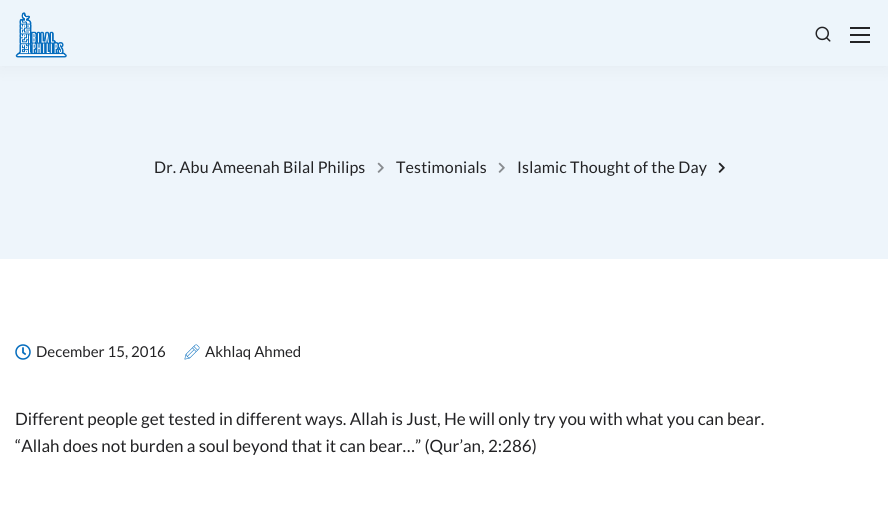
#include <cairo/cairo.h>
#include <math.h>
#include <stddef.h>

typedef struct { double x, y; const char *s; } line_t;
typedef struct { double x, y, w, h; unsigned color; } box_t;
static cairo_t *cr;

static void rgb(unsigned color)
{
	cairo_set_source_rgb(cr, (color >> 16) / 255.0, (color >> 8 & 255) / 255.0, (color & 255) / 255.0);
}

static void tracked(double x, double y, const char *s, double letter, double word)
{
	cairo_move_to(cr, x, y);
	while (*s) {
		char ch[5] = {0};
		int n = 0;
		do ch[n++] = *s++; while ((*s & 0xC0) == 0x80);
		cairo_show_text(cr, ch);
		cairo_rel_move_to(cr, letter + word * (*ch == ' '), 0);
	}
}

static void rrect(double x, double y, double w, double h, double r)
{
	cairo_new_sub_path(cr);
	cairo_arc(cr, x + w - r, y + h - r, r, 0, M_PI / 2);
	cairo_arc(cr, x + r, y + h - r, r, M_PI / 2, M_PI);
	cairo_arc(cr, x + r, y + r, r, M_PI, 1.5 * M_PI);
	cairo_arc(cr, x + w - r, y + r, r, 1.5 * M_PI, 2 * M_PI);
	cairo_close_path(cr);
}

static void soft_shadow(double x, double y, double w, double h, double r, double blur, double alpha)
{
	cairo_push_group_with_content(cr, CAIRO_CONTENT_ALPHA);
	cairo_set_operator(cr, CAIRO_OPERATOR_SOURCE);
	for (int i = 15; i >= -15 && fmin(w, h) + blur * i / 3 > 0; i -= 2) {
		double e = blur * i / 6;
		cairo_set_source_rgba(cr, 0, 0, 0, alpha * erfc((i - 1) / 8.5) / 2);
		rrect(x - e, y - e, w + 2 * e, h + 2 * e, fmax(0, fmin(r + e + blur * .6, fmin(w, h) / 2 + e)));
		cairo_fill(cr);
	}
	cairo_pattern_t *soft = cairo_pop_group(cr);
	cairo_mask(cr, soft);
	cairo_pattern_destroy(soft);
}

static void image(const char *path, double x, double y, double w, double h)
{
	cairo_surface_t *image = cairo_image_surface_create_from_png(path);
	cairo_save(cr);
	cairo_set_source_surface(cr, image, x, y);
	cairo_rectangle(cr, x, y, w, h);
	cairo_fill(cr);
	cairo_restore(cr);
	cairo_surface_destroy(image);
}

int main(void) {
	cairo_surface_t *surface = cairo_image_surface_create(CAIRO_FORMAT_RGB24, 888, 506);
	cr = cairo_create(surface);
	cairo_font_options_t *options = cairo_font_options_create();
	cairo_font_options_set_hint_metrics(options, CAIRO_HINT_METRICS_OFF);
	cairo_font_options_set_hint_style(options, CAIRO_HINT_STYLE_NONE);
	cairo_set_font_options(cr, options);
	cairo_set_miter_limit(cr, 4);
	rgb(0xffffff);
	cairo_paint(cr);
	rgb(0xeef5fb);
	cairo_rectangle(cr, 0, 66, 888, 193);
	cairo_fill(cr);
	rgb(0x000000);
	soft_shadow(0, 0, 888, 66, 0, 10, 0.05);
	rgb(0xedf5fb);
	cairo_rectangle(cr, 0, 0, 888, 66);
	cairo_fill(cr);
	image("img/1.png", 15, 12, 52, 46);
	image("img/2.png", 815, 26, 16, 16);
	{
		static const box_t items[] = {
			{850, 41, 20, 2, 0x232325},
			{850, 27, 20, 2, 0x232325},
			{850, 34, 20, 2, 0x232325},
		};
		for (size_t i = 0; i < sizeof items / sizeof *items; i++) {
			rgb(items[i].color);
			cairo_rectangle(cr, items[i].x, items[i].y, items[i].w, items[i].h);
			cairo_fill(cr);
		}
	}
	image("img/3.png", 377, 162, 7, 11);
	image("img/3.png", 498, 162, 7, 11);
	image("img/4.png", 718, 162, 7, 11);
	image("img/5.png", 15, 344, 16, 16);
	image("img/6.png", 184, 344, 16, 16);
	cairo_select_font_face(cr, "Lato", CAIRO_FONT_SLANT_NORMAL, CAIRO_FONT_WEIGHT_NORMAL);
	cairo_set_font_size(cr, 16);
	{
		static const line_t items[] = {
			{154, 173, "Dr. Abu Ameenah Bilal Philips"},
			{396, 173, "Testimonials"},
			{517, 173, "Islamic Thought of the Day"},
		};
		for (size_t i = 0; i < sizeof items / sizeof *items; i++) {
			tracked(items[i].x, items[i].y, items[i].s, 0.15, 0);
		}
	}
	cairo_set_font_size(cr, 15);
	cairo_move_to(cr, 36, 357);
	cairo_show_text(cr, "December 15, 2016");
	cairo_move_to(cr, 205, 357);
	cairo_show_text(cr, "Akhlaq Ahmed");
	cairo_set_font_size(cr, 17);
	cairo_move_to(cr, 15, 425);
	cairo_show_text(cr, "Different people get tested in different ways. Allah is Just, He will only try you with what you can bear.");
	cairo_move_to(cr, 15, 452);
	cairo_show_text(cr, "“Allah does not burden a soul beyond that it can bear…” (Qur’an, 2:286)");
	cairo_surface_write_to_png(surface, "page.png");
	cairo_font_options_destroy(options);
	cairo_destroy(cr);
	cairo_surface_destroy(surface);
	return 0;
}
